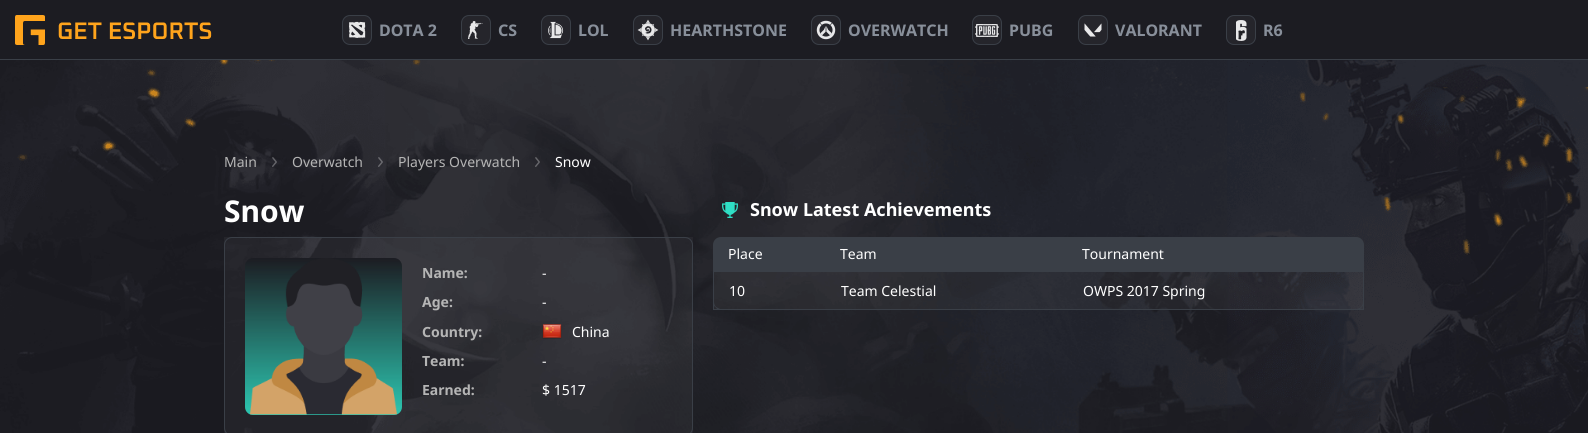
#include <cairo/cairo.h>
#include <math.h>
#include <stddef.h>

typedef struct { double x, y; const char *s; } line_t;
static cairo_t *cr;

static void rgb(unsigned color)
{
	cairo_set_source_rgb(cr, (color >> 16) / 255.0, (color >> 8 & 255) / 255.0, (color & 255) / 255.0);
}

static void rrect(double x, double y, double w, double h, double r)
{
	cairo_new_sub_path(cr);
	cairo_arc(cr, x + w - r, y + h - r, r, 0, M_PI / 2);
	cairo_arc(cr, x + r, y + h - r, r, M_PI / 2, M_PI);
	cairo_arc(cr, x + r, y + r, r, M_PI, 1.5 * M_PI);
	cairo_arc(cr, x + w - r, y + r, r, 1.5 * M_PI, 2 * M_PI);
	cairo_close_path(cr);
}

static void image(const char *path, double x, double y, double w, double h)
{
	cairo_surface_t *image = cairo_image_surface_create_from_png(path);
	cairo_save(cr);
	cairo_set_source_surface(cr, image, x, y);
	cairo_rectangle(cr, x, y, w, h);
	cairo_fill(cr);
	cairo_restore(cr);
	cairo_surface_destroy(image);
}

int main(void) {
	cairo_surface_t *surface = cairo_image_surface_create(CAIRO_FORMAT_RGB24, 1588, 433);
	cr = cairo_create(surface);
	cairo_font_options_t *options = cairo_font_options_create();
	cairo_font_options_set_hint_metrics(options, CAIRO_HINT_METRICS_OFF);
	cairo_font_options_set_hint_style(options, CAIRO_HINT_STYLE_NONE);
	cairo_set_font_options(cr, options);
	cairo_set_miter_limit(cr, 4);
	cairo_pattern_t *gradient;
	rgb(0x1c1c22);
	cairo_paint(cr);
	image("img/1.png", 0, 60, 1588, 373);
	image("img/2.png", 15, 15, 197, 30);
	rgb(0x25252b);
	rrect(342.5, 15.5, 29, 29, 7.5);
	cairo_fill_preserve(cr);
	rgb(0x3a3f47);
	cairo_set_line_width(cr, 1);
	cairo_stroke(cr);
	image("img/3.png", 349, 21, 17, 17);
	rgb(0x25252b);
	rrect(461.5, 15.5, 29, 29, 7.5);
	cairo_fill_preserve(cr);
	rgb(0x3a3f47);
	cairo_stroke(cr);
	image("img/4.png", 468, 21, 15, 18);
	rgb(0x25252b);
	rrect(541.5, 15.5, 29, 29, 7.5);
	cairo_fill_preserve(cr);
	rgb(0x3a3f47);
	cairo_stroke(cr);
	image("img/5.png", 548, 21, 16, 18);
	rgb(0x25252b);
	rrect(633.5, 15.5, 29, 29, 7.5);
	cairo_fill_preserve(cr);
	rgb(0x3a3f47);
	cairo_stroke(cr);
	image("img/6.png", 637, 19, 22, 22);
	rgb(0x25252b);
	rrect(811.5, 15.5, 29, 29, 7.5);
	cairo_fill_preserve(cr);
	rgb(0x3a3f47);
	cairo_stroke(cr);
	image("img/7.png", 816, 20, 20, 20);
	rgb(0x25252b);
	rrect(972.5, 15.5, 29, 29, 7.5);
	cairo_fill_preserve(cr);
	rgb(0x3a3f47);
	cairo_stroke(cr);
	image("img/8.png", 975, 24, 24, 13);
	rgb(0x25252b);
	rrect(1078.5, 15.5, 29, 29, 7.5);
	cairo_fill_preserve(cr);
	rgb(0x3a3f47);
	cairo_stroke(cr);
	image("img/9.png", 1084, 23, 18, 14);
	rgb(0x25252b);
	rrect(1226.5, 15.5, 29, 29, 7.5);
	cairo_fill_preserve(cr);
	rgb(0x3a3f47);
	cairo_stroke(cr);
	image("img/10.png", 1236, 20, 11, 21);
	cairo_rectangle(cr, 0, 59, 1588, 1);
	cairo_fill(cr);
	image("img/11.png", 272, 157, 5, 10);
	image("img/12.png", 378, 157, 5, 10);
	image("img/13.png", 535, 157, 5, 10);
	cairo_set_source_rgba(cr, 1, 1, 1, 0.04);
	cairo_rectangle(cr, 224, 237, 469, 196);
	cairo_fill(cr);
	rrect(224.5, 237.5, 468, 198, 7.5);
	rgb(0x3a3f47);
	cairo_stroke(cr);
	rgb(0x1c1c22);
	rrect(245, 258, 157, 157, 8);
	cairo_fill(cr);
	gradient = cairo_pattern_create_linear(324, 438, 324, 258);
	cairo_pattern_add_color_stop_rgba(gradient, 0, 0.184, 0.875, 0.773, 1);
	cairo_pattern_add_color_stop_rgba(gradient, 1, 0.184, 0.875, 0.773, 0);
	cairo_set_source(cr, gradient);
	cairo_pattern_destroy(gradient);
	rrect(245, 258, 157, 157, 8);
	cairo_fill(cr);
	image("img/14.png", 250, 258, 147, 157);
	image("img/15.png", 542, 324, 20, 15);
	image("img/16.png", 722, 202, 16, 16);
	rgb(0x3a3f47);
	cairo_new_path(cr);
	cairo_move_to(cr, 721, 237);
	cairo_line_to(cr, 825, 237);
	cairo_line_to(cr, 825, 271);
	cairo_line_to(cr, 713, 271);
	cairo_line_to(cr, 713, 245);
	cairo_curve_to(cr, 713, 240.5, 716.5, 237, 721, 237);
	cairo_close_path(cr);
	cairo_fill(cr);
	cairo_rectangle(cr, 825, 237, 242, 34);
	cairo_fill(cr);
	cairo_new_path(cr);
	cairo_move_to(cr, 1067, 237);
	cairo_line_to(cr, 1356, 237);
	cairo_curve_to(cr, 1360.5, 237, 1364, 240.5, 1364, 245);
	cairo_line_to(cr, 1364, 271);
	cairo_line_to(cr, 1067, 271);
	cairo_close_path(cr);
	cairo_fill(cr);
	cairo_set_source_rgba(cr, 1, 1, 1, 0.04);
	cairo_rectangle(cr, 713.5, 271.5, 650, 38);
	cairo_fill_preserve(cr);
	rgb(0x3a3f47);
	cairo_stroke(cr);
	cairo_new_path(cr);
	cairo_move_to(cr, 825, 310);
	cairo_line_to(cr, 824, 309);
	cairo_line_to(cr, 720, 309);
	cairo_line_to(cr, 716, 307);
	cairo_line_to(cr, 716, 308);
	cairo_curve_to(cr, 717, 309, 719, 310, 721, 310);
	cairo_close_path(cr);
	cairo_fill(cr);
	cairo_new_path(cr);
	cairo_move_to(cr, 714, 272);
	cairo_line_to(cr, 713, 271);
	cairo_line_to(cr, 713, 302);
	cairo_curve_to(cr, 713, 304, 714, 306, 715.5, 307.5);
	cairo_line_to(cr, 716, 307);
	cairo_curve_to(cr, 715, 306, 714, 304, 714, 302);
	cairo_close_path(cr);
	cairo_fill(cr);
	cairo_new_path(cr);
	cairo_move_to(cr, 1364, 271);
	cairo_line_to(cr, 1363, 272);
	cairo_line_to(cr, 1363, 302);
	cairo_curve_to(cr, 1363, 304, 1362, 306, 1361, 307);
	cairo_line_to(cr, 1361.5, 307.5);
	cairo_curve_to(cr, 1363, 306, 1364, 304, 1364, 302);
	cairo_close_path(cr);
	cairo_fill(cr);
	cairo_new_path(cr);
	cairo_move_to(cr, 1356, 310);
	cairo_curve_to(cr, 1358, 310, 1360, 309, 1362, 308);
	cairo_line_to(cr, 1361, 307);
	cairo_curve_to(cr, 1360, 308, 1358, 309, 1356, 309);
	cairo_line_to(cr, 1068, 309);
	cairo_line_to(cr, 1067, 310);
	cairo_close_path(cr);
	cairo_fill(cr);
	cairo_select_font_face(cr, "Noto Sans", CAIRO_FONT_SLANT_NORMAL, CAIRO_FONT_WEIGHT_BOLD);
	cairo_set_font_size(cr, 16);
	rgb(0x888f9a);
	{
		static const line_t items[] = {
			{379, 36, "DOTA 2"},
			{498, 36, "CS"},
			{578, 36, "LOL"},
			{670, 36, "HEARTHSTONE"},
			{848, 36, "OVERWATCH"},
			{1009, 36, "PUBG"},
			{1115, 36, "VALORANT"},
			{1263, 36, "R6"},
		};
		for (size_t i = 0; i < sizeof items / sizeof *items; i++) {
			cairo_move_to(cr, items[i].x, items[i].y);
			cairo_show_text(cr, items[i].s);
		}
	}
	cairo_select_font_face(cr, "Noto Sans", CAIRO_FONT_SLANT_NORMAL, CAIRO_FONT_WEIGHT_NORMAL);
	cairo_set_font_size(cr, 14);
	rgb(0xb5b5b5);
	{
		static const line_t items[] = {
			{224, 167, "Main"},
			{292, 167, "Overwatch"},
			{398, 167, "Players Overwatch"},
		};
		for (size_t i = 0; i < sizeof items / sizeof *items; i++) {
			cairo_move_to(cr, items[i].x, items[i].y);
			cairo_show_text(cr, items[i].s);
		}
	}
	rgb(0xffffff);
	cairo_move_to(cr, 555, 167);
	cairo_show_text(cr, "Snow");
	cairo_select_font_face(cr, "Noto Sans", CAIRO_FONT_SLANT_NORMAL, CAIRO_FONT_WEIGHT_BOLD);
	cairo_set_font_size(cr, 30);
	cairo_move_to(cr, 224, 222);
	cairo_show_text(cr, "Snow");
	cairo_set_font_size(cr, 14);
	rgb(0xb5b5b5);
	cairo_move_to(cr, 422, 278);
	cairo_show_text(cr, "Name:");
	cairo_select_font_face(cr, "Noto Sans", CAIRO_FONT_SLANT_NORMAL, CAIRO_FONT_WEIGHT_NORMAL);
	rgb(0xffffff);
	cairo_move_to(cr, 542, 278);
	cairo_show_text(cr, "-");
	cairo_select_font_face(cr, "Noto Sans", CAIRO_FONT_SLANT_NORMAL, CAIRO_FONT_WEIGHT_BOLD);
	rgb(0xb5b5b5);
	cairo_move_to(cr, 422, 307);
	cairo_show_text(cr, "Age:");
	cairo_select_font_face(cr, "Noto Sans", CAIRO_FONT_SLANT_NORMAL, CAIRO_FONT_WEIGHT_NORMAL);
	rgb(0xffffff);
	cairo_move_to(cr, 542, 307);
	cairo_show_text(cr, "-");
	cairo_select_font_face(cr, "Noto Sans", CAIRO_FONT_SLANT_NORMAL, CAIRO_FONT_WEIGHT_BOLD);
	rgb(0xb5b5b5);
	cairo_move_to(cr, 422, 337);
	cairo_show_text(cr, "Country:");
	cairo_select_font_face(cr, "Noto Sans", CAIRO_FONT_SLANT_NORMAL, CAIRO_FONT_WEIGHT_NORMAL);
	rgb(0xffffff);
	cairo_move_to(cr, 572, 337);
	cairo_show_text(cr, "China");
	cairo_select_font_face(cr, "Noto Sans", CAIRO_FONT_SLANT_NORMAL, CAIRO_FONT_WEIGHT_BOLD);
	rgb(0xb5b5b5);
	cairo_move_to(cr, 422, 366);
	cairo_show_text(cr, "Team:");
	cairo_select_font_face(cr, "Noto Sans", CAIRO_FONT_SLANT_NORMAL, CAIRO_FONT_WEIGHT_NORMAL);
	rgb(0xffffff);
	cairo_move_to(cr, 542, 366);
	cairo_show_text(cr, "-");
	cairo_select_font_face(cr, "Noto Sans", CAIRO_FONT_SLANT_NORMAL, CAIRO_FONT_WEIGHT_BOLD);
	rgb(0xb5b5b5);
	cairo_move_to(cr, 422, 395);
	cairo_show_text(cr, "Earned:");
	cairo_select_font_face(cr, "Noto Sans", CAIRO_FONT_SLANT_NORMAL, CAIRO_FONT_WEIGHT_NORMAL);
	rgb(0xffffff);
	cairo_move_to(cr, 542, 395);
	cairo_show_text(cr, "$ 1517");
	cairo_select_font_face(cr, "Noto Sans", CAIRO_FONT_SLANT_NORMAL, CAIRO_FONT_WEIGHT_BOLD);
	cairo_set_font_size(cr, 18);
	cairo_move_to(cr, 750, 216);
	cairo_show_text(cr, "Snow Latest Achievements");
	cairo_select_font_face(cr, "Noto Sans", CAIRO_FONT_SLANT_NORMAL, CAIRO_FONT_WEIGHT_NORMAL);
	cairo_set_font_size(cr, 14);
	{
		static const line_t items[] = {
			{728, 259, "Place"},
			{840, 259, "Team"},
			{1082, 259, "Tournament"},
			{729, 296, "10"},
			{841, 296, "Team Celestial"},
			{1083, 296, "OWPS 2017 Spring"},
		};
		for (size_t i = 0; i < sizeof items / sizeof *items; i++) {
			cairo_move_to(cr, items[i].x, items[i].y);
			cairo_show_text(cr, items[i].s);
		}
	}
	cairo_surface_write_to_png(surface, "page.png");
	cairo_font_options_destroy(options);
	cairo_destroy(cr);
	cairo_surface_destroy(surface);
	return 0;
}
